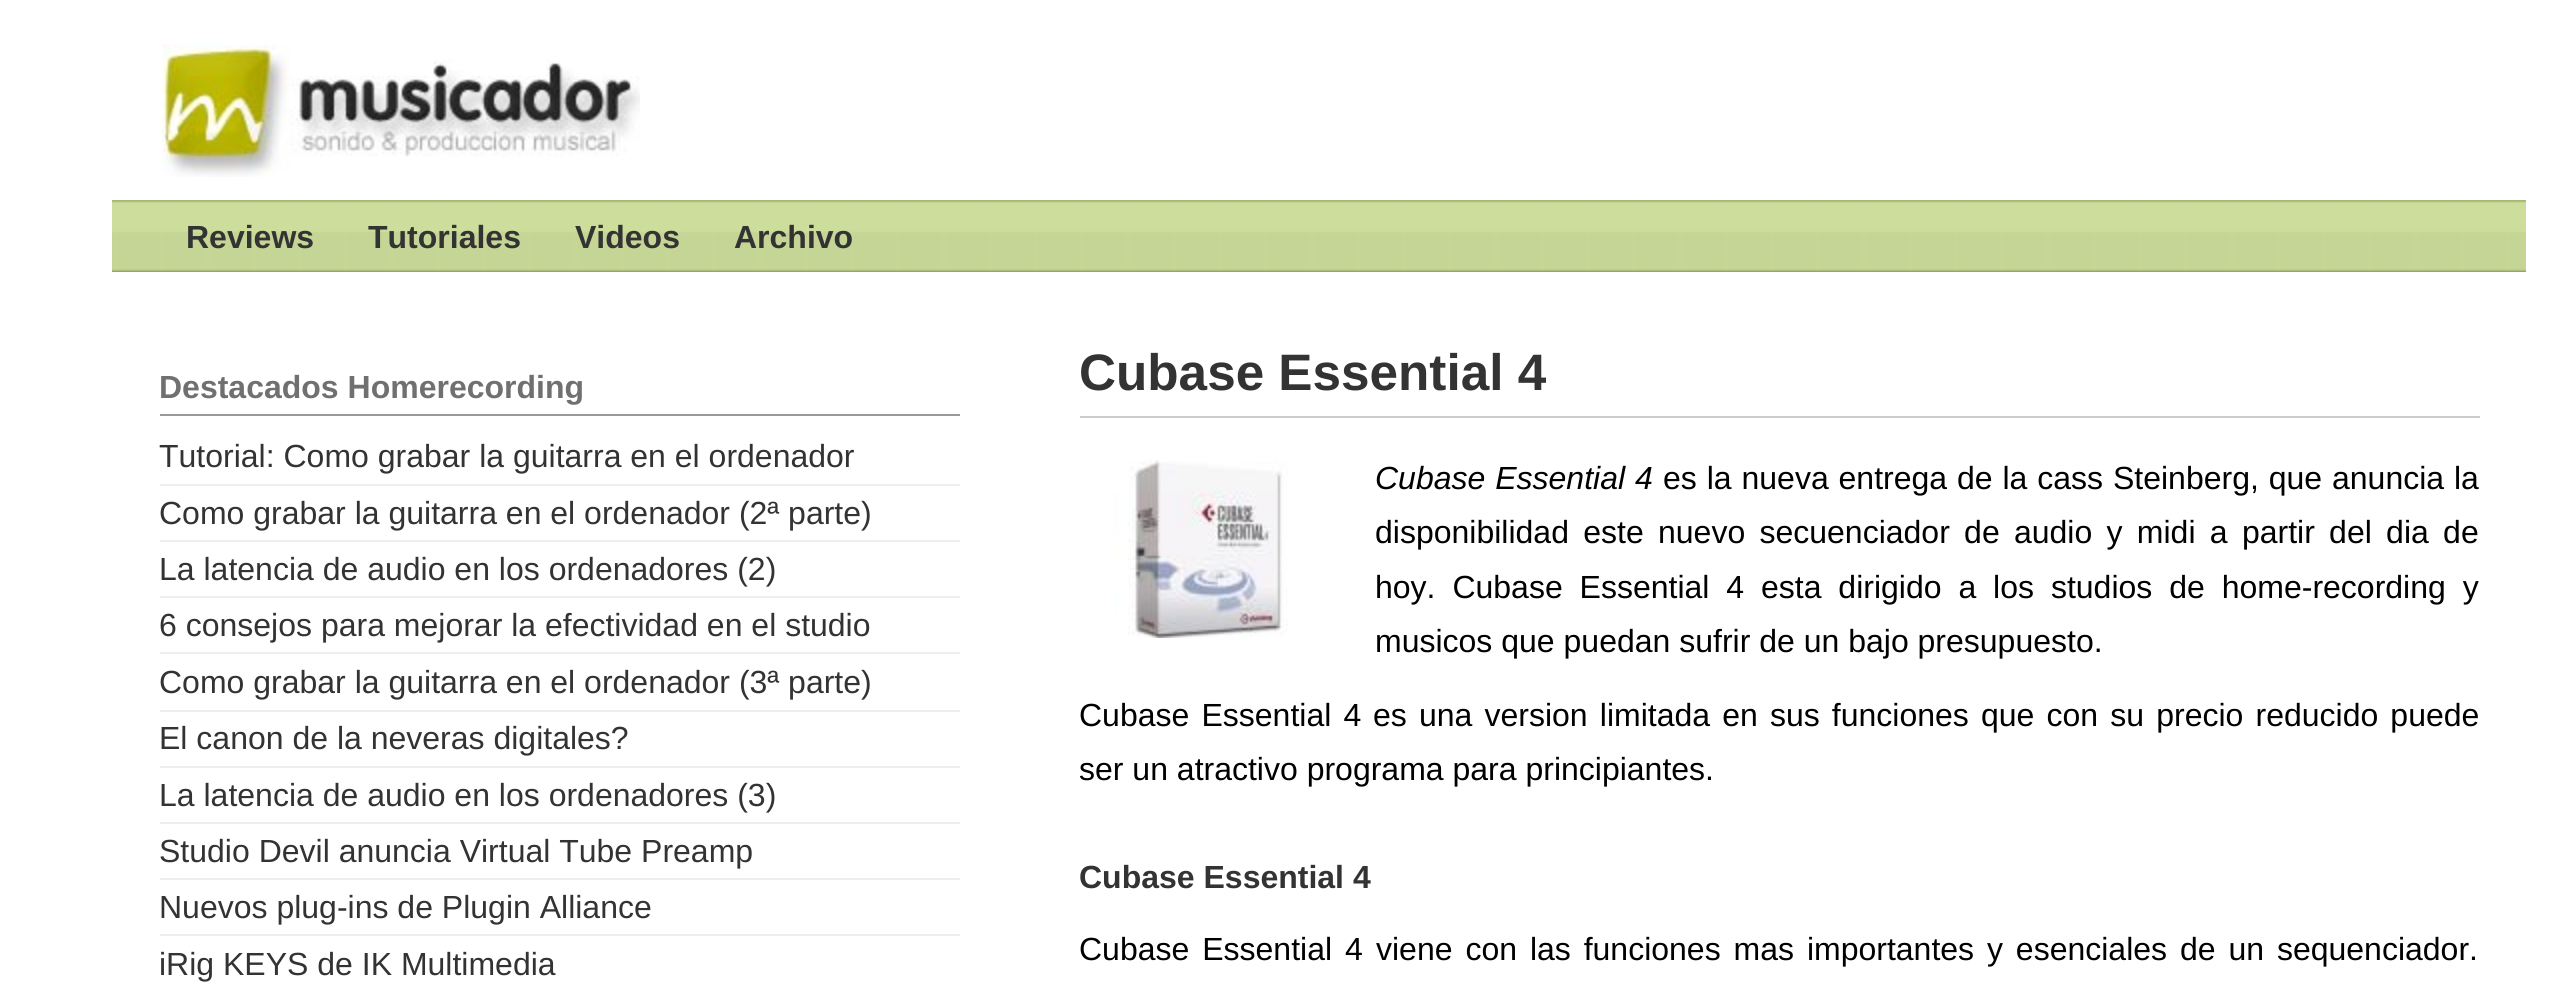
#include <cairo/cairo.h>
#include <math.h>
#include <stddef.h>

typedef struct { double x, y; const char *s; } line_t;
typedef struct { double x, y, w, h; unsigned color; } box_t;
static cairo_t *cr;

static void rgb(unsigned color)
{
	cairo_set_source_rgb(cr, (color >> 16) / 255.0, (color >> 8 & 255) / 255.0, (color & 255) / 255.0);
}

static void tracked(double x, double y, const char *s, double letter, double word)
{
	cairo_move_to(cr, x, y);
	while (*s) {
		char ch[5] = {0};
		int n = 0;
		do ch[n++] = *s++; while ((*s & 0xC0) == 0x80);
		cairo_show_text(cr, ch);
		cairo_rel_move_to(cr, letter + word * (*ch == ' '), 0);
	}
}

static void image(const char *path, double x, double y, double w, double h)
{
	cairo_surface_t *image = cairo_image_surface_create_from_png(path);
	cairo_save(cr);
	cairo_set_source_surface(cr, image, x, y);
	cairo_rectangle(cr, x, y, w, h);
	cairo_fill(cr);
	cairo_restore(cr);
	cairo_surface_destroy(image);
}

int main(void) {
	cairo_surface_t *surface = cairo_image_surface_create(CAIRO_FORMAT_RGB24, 2558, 987);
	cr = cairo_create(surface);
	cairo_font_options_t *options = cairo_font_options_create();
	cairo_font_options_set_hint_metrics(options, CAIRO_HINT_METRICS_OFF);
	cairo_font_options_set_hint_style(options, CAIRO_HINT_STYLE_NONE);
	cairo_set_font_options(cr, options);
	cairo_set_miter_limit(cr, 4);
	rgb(0xffffff);
	cairo_paint(cr);
	image("img/1.png", 162, 44, 478, 133);
	image("img/2.png", 112, 200, 2414, 72);
	rgb(0xcccccc);
	cairo_rectangle(cr, 1080, 416, 1400, 2);
	cairo_fill(cr);
	image("img/3.png", 1113, 460, 175, 178);
	{
		static const box_t items[] = {
			{160, 414, 800, 2, 0x999999},
			{160, 484, 800, 2, 0xeeeeee},
			{160, 540, 800, 2, 0xeeeeee},
			{160, 596, 800, 2, 0xeeeeee},
			{160, 652, 800, 2, 0xeeeeee},
			{160, 710, 800, 2, 0xeeeeee},
			{160, 766, 800, 2, 0xeeeeee},
			{160, 822, 800, 2, 0xeeeeee},
			{160, 878, 800, 2, 0xeeeeee},
			{160, 934, 800, 2, 0xeeeeee},
		};
		for (size_t i = 0; i < sizeof items / sizeof *items; i++) {
			rgb(items[i].color);
			cairo_rectangle(cr, items[i].x, items[i].y, items[i].w, items[i].h);
			cairo_fill(cr);
		}
	}
	cairo_select_font_face(cr, "Liberation Sans", CAIRO_FONT_SLANT_NORMAL, CAIRO_FONT_WEIGHT_BOLD);
	cairo_set_font_size(cr, 32);
	rgb(0x333333);
	{
		static const line_t items[] = {
			{186, 248, "Reviews"},
			{368, 248, "Tutoriales"},
			{575, 248, "Videos"},
			{734, 248, "Archivo"},
		};
		for (size_t i = 0; i < sizeof items / sizeof *items; i++) {
			cairo_move_to(cr, items[i].x, items[i].y);
			cairo_show_text(cr, items[i].s);
		}
	}
	cairo_set_font_size(cr, 51.25);
	cairo_move_to(cr, 1079, 390);
	cairo_show_text(cr, "Cubase Essential 4");
	cairo_select_font_face(cr, "Liberation Sans", CAIRO_FONT_SLANT_ITALIC, CAIRO_FONT_WEIGHT_NORMAL);
	cairo_set_font_size(cr, 32);
	rgb(0x000000);
	tracked(1375, 489, "Cubase Essential 4", 0, 1);
	cairo_select_font_face(cr, "Liberation Sans", CAIRO_FONT_SLANT_NORMAL, CAIRO_FONT_WEIGHT_NORMAL);
	tracked(1663, 489, "es la nueva entrega de la cass Steinberg, que anuncia la", 0, 1);
	tracked(1375, 543, "disponibilidad este nuevo secuenciador de audio y midi a partir del dia de", 0, 5.4);
	tracked(1375, 598, "hoy. Cubase Essential 4 esta dirigido a los studios de home-recording y", 0, 8);
	cairo_move_to(cr, 1375, 652);
	cairo_show_text(cr, "musicos que puedan sufrir de un bajo presupuesto.");
	tracked(1079, 726, "Cubase Essential 4", 0, 3.25);
	tracked(1373, 726, "es una version limitada en sus funciones que con su precio reducido puede", 0, 3.25);
	cairo_move_to(cr, 1079, 780);
	cairo_show_text(cr, "ser un atractivo programa para principiantes.");
	cairo_select_font_face(cr, "Liberation Sans", CAIRO_FONT_SLANT_NORMAL, CAIRO_FONT_WEIGHT_BOLD);
	rgb(0x333333);
	cairo_move_to(cr, 1079, 888);
	cairo_show_text(cr, "Cubase Essential 4");
	cairo_select_font_face(cr, "Liberation Sans", CAIRO_FONT_SLANT_NORMAL, CAIRO_FONT_WEIGHT_NORMAL);
	rgb(0x000000);
	tracked(1079, 960, "Cubase Essential 4", 0, 4);
	tracked(1376, 960, "viene con las funciones mas importantes y esenciales de un sequenciador.", 0, 4);
	cairo_select_font_face(cr, "Liberation Sans", CAIRO_FONT_SLANT_NORMAL, CAIRO_FONT_WEIGHT_BOLD);
	rgb(0x707070);
	cairo_move_to(cr, 159, 398);
	cairo_show_text(cr, "Destacados Homerecording");
	cairo_select_font_face(cr, "Liberation Sans", CAIRO_FONT_SLANT_NORMAL, CAIRO_FONT_WEIGHT_NORMAL);
	rgb(0x333333);
	{
		static const line_t items[] = {
			{159, 467, "Tutorial: Como grabar la guitarra en el ordenador"},
			{159, 524, "Como grabar la guitarra en el ordenador (2ª parte)"},
			{159, 580, "La latencia de audio en los ordenadores (2)"},
			{159, 636, "6 consejos para mejorar la efectividad en el studio"},
			{159, 693, "Como grabar la guitarra en el ordenador (3ª parte)"},
			{159, 749, "El canon de la neveras digitales?"},
			{159, 806, "La latencia de audio en los ordenadores (3)"},
			{159, 862, "Studio Devil anuncia Virtual Tube Preamp"},
			{159, 918, "Nuevos plug-ins de Plugin Alliance"},
			{159, 975, "iRig KEYS de IK Multimedia"},
		};
		for (size_t i = 0; i < sizeof items / sizeof *items; i++) {
			cairo_move_to(cr, items[i].x, items[i].y);
			cairo_show_text(cr, items[i].s);
		}
	}
	cairo_surface_write_to_png(surface, "page.png");
	cairo_font_options_destroy(options);
	cairo_destroy(cr);
	cairo_surface_destroy(surface);
	return 0;
}
